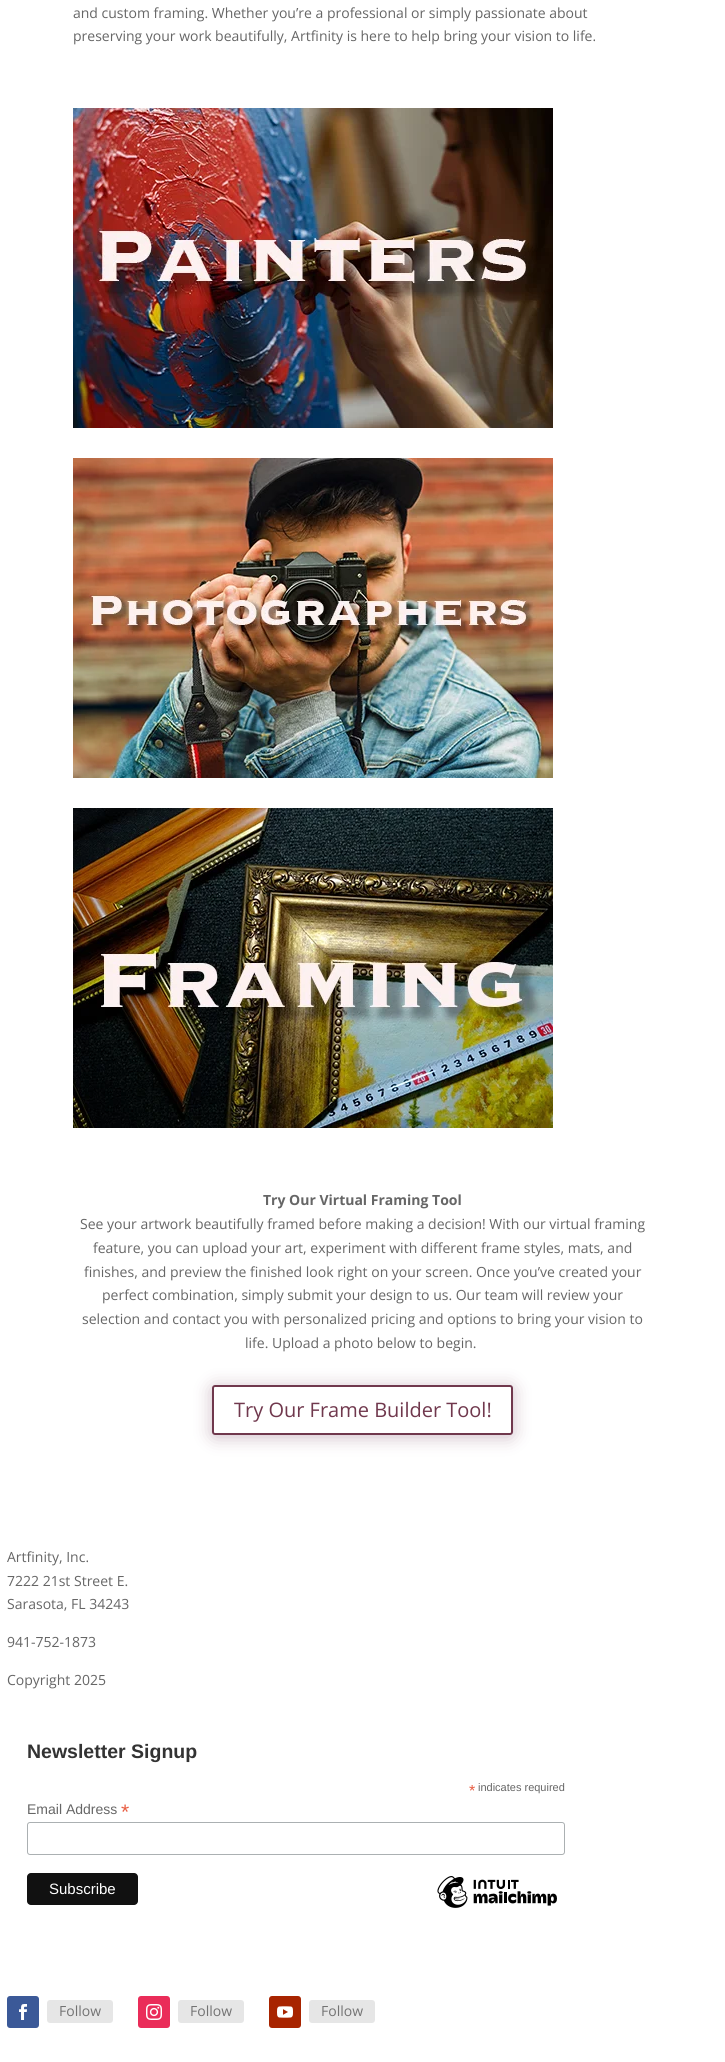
#include <cairo/cairo.h>
#include <math.h>
#include <stddef.h>

typedef struct { double x, y; const char *s; } line_t;
static cairo_t *cr;

static void rgb(unsigned color)
{
	cairo_set_source_rgb(cr, (color >> 16) / 255.0, (color >> 8 & 255) / 255.0, (color & 255) / 255.0);
}

static void rrect(double x, double y, double w, double h, double r)
{
	cairo_new_sub_path(cr);
	cairo_arc(cr, x + w - r, y + h - r, r, 0, M_PI / 2);
	cairo_arc(cr, x + r, y + h - r, r, M_PI / 2, M_PI);
	cairo_arc(cr, x + r, y + r, r, M_PI, 1.5 * M_PI);
	cairo_arc(cr, x + w - r, y + r, r, 1.5 * M_PI, 2 * M_PI);
	cairo_close_path(cr);
}

static void soft_shadow(double x, double y, double w, double h, double r, double blur, double alpha)
{
	cairo_push_group_with_content(cr, CAIRO_CONTENT_ALPHA);
	cairo_set_operator(cr, CAIRO_OPERATOR_SOURCE);
	for (int i = 15; i >= -15 && fmin(w, h) + blur * i / 3 > 0; i -= 2) {
		double e = blur * i / 6;
		cairo_set_source_rgba(cr, 0, 0, 0, alpha * erfc((i - 1) / 8.5) / 2);
		rrect(x - e, y - e, w + 2 * e, h + 2 * e, fmax(0, fmin(r + e + blur * .6, fmin(w, h) / 2 + e)));
		cairo_fill(cr);
	}
	cairo_pattern_t *soft = cairo_pop_group(cr);
	cairo_mask(cr, soft);
	cairo_pattern_destroy(soft);
}

static void image(const char *path, double x, double y, double w, double h)
{
	cairo_surface_t *image = cairo_image_surface_create_from_png(path);
	cairo_save(cr);
	cairo_set_source_surface(cr, image, x, y);
	cairo_rectangle(cr, x, y, w, h);
	cairo_fill(cr);
	cairo_restore(cr);
	cairo_surface_destroy(image);
}

int main(void) {
	cairo_surface_t *surface = cairo_image_surface_create(CAIRO_FORMAT_RGB24, 725, 2062);
	cr = cairo_create(surface);
	cairo_font_options_t *options = cairo_font_options_create();
	cairo_font_options_set_hint_metrics(options, CAIRO_HINT_METRICS_OFF);
	cairo_font_options_set_hint_style(options, CAIRO_HINT_STYLE_NONE);
	cairo_set_font_options(cr, options);
	cairo_set_miter_limit(cr, 4);
	rgb(0xffffff);
	cairo_paint(cr);
	image("img/1.png", 73, 108, 480, 320);
	image("img/2.png", 73, 458, 480, 320);
	image("img/3.png", 73, 808, 480, 320);
	cairo_save(cr);
	cairo_set_fill_rule(cr, CAIRO_FILL_RULE_EVEN_ODD);
	cairo_new_path(cr);
	cairo_move_to(cr, 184, 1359);
	cairo_line_to(cr, 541, 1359);
	cairo_line_to(cr, 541, 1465);
	cairo_line_to(cr, 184, 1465);
	cairo_close_path(cr);
	cairo_move_to(cr, 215, 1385);
	cairo_line_to(cr, 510, 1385);
	cairo_curve_to(cr, 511.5, 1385, 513, 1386.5, 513, 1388);
	cairo_line_to(cr, 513, 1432);
	cairo_curve_to(cr, 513, 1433.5, 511.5, 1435, 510, 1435);
	cairo_line_to(cr, 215, 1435);
	cairo_curve_to(cr, 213.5, 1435, 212, 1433.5, 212, 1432);
	cairo_line_to(cr, 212, 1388);
	cairo_curve_to(cr, 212, 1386.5, 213.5, 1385, 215, 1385);
	cairo_close_path(cr);
	cairo_clip(cr);
	rgb(0x602345);
	soft_shadow(212, 1387, 301, 50, 3, 9, 0.3);
	cairo_restore(cr);
	rrect(213, 1386, 299, 48, 2);
	rgb(0x70384d);
	cairo_stroke(cr);
	rrect(27.5, 1822.5, 537, 32, 2.5);
	rgb(0xabb0b2);
	cairo_set_line_width(cr, 1);
	cairo_stroke(cr);
	rgb(0x111111);
	rrect(27, 1873, 111, 32, 4);
	cairo_fill(cr);
	image("img/4.png", 437, 1876, 120, 32);
	rgb(0x3b5998);
	rrect(7, 1996, 32, 32, 3);
	cairo_fill(cr);
	image("img/5.png", 19, 2004, 8, 16);
	rgb(0xe6e6e6);
	rrect(47, 2000, 66, 23, 3);
	cairo_fill(cr);
	rgb(0xea2c59);
	rrect(138, 1996, 32, 32, 3);
	cairo_fill(cr);
	image("img/6.png", 146, 2004, 16, 16);
	rgb(0xe6e6e6);
	rrect(178, 2000, 66, 23, 3);
	cairo_fill(cr);
	rgb(0xa82400);
	rrect(269, 1996, 32, 32, 3);
	cairo_fill(cr);
	image("img/7.png", 277, 2006, 16, 12);
	rgb(0xe6e6e6);
	rrect(309, 2000, 66, 23, 3);
	cairo_fill(cr);
	cairo_select_font_face(cr, "Open Sans", CAIRO_FONT_SLANT_NORMAL, CAIRO_FONT_WEIGHT_NORMAL);
	cairo_set_font_size(cr, 14);
	rgb(0x666666);
	cairo_move_to(cr, 73, 18);
	cairo_show_text(cr, "and custom framing. Whether you’re a professional or simply passionate about");
	cairo_move_to(cr, 73, 41);
	cairo_show_text(cr, "preserving your work beautifully, Artfinity is here to help bring your vision to life.");
	cairo_select_font_face(cr, "Open Sans", CAIRO_FONT_SLANT_NORMAL, CAIRO_FONT_WEIGHT_BOLD);
	cairo_move_to(cr, 263, 1205);
	cairo_show_text(cr, "Try Our Virtual Framing Tool");
	cairo_select_font_face(cr, "Open Sans", CAIRO_FONT_SLANT_NORMAL, CAIRO_FONT_WEIGHT_NORMAL);
	{
		static const line_t items[] = {
			{80, 1229, "See your artwork beautifully framed before making a decision! With our virtual framing"},
			{93, 1253, "feature, you can upload your art, experiment with different frame styles, mats, and"},
			{84, 1277, "finishes, and preview the finished look right on your screen. Once you’ve created your"},
			{102, 1300, "perfect combination, simply submit your design to us. Our team will review your"},
			{82, 1324, "selection and contact you with personalized pricing and options to bring your vision to"},
			{245, 1348, "life. Upload a photo below to begin."},
		};
		for (size_t i = 0; i < sizeof items / sizeof *items; i++) {
			cairo_move_to(cr, items[i].x, items[i].y);
			cairo_show_text(cr, items[i].s);
		}
	}
	cairo_set_font_size(cr, 20);
	rgb(0x70384d);
	cairo_move_to(cr, 234, 1417);
	cairo_show_text(cr, "Try Our Frame Builder Tool!");
	cairo_set_font_size(cr, 14);
	rgb(0x666666);
	{
		static const line_t items[] = {
			{7, 1562, "Artfinity, Inc."},
			{7, 1586, "7222 21st Street E."},
			{7, 1609, "Sarasota, FL 34243"},
			{7, 1647, "941-752-1873"},
			{7, 1685, "Copyright 2025"},
		};
		for (size_t i = 0; i < sizeof items / sizeof *items; i++) {
			cairo_move_to(cr, items[i].x, items[i].y);
			cairo_show_text(cr, items[i].s);
		}
	}
	cairo_select_font_face(cr, "Liberation Sans", CAIRO_FONT_SLANT_NORMAL, CAIRO_FONT_WEIGHT_BOLD);
	cairo_set_font_size(cr, 19.5);
	rgb(0x333333);
	cairo_move_to(cr, 27, 1758);
	cairo_show_text(cr, "Newsletter Signup");
	cairo_select_font_face(cr, "Liberation Sans", CAIRO_FONT_SLANT_NORMAL, CAIRO_FONT_WEIGHT_NORMAL);
	cairo_set_font_size(cr, 16);
	rgb(0xe85c41);
	cairo_move_to(cr, 469, 1796);
	cairo_show_text(cr, "*");
	cairo_set_font_size(cr, 11);
	rgb(0x666666);
	cairo_move_to(cr, 478, 1791);
	cairo_show_text(cr, "indicates required");
	cairo_set_font_size(cr, 14);
	cairo_move_to(cr, 27, 1814);
	cairo_show_text(cr, "Email Address");
	cairo_set_font_size(cr, 21);
	rgb(0xe85c41);
	cairo_move_to(cr, 121, 1819);
	cairo_show_text(cr, "*");
	cairo_set_font_size(cr, 15);
	rgb(0xffffff);
	cairo_move_to(cr, 49, 1894);
	cairo_show_text(cr, "Subscribe");
	cairo_select_font_face(cr, "Open Sans", CAIRO_FONT_SLANT_NORMAL, CAIRO_FONT_WEIGHT_NORMAL);
	cairo_set_font_size(cr, 14);
	rgb(0x737373);
	{
		static const line_t items[] = {
			{59, 2016, "Follow"},
			{190, 2016, "Follow"},
			{321, 2016, "Follow"},
		};
		for (size_t i = 0; i < sizeof items / sizeof *items; i++) {
			cairo_move_to(cr, items[i].x, items[i].y);
			cairo_show_text(cr, items[i].s);
		}
	}
	cairo_surface_write_to_png(surface, "page.png");
	cairo_font_options_destroy(options);
	cairo_destroy(cr);
	cairo_surface_destroy(surface);
	return 0;
}
